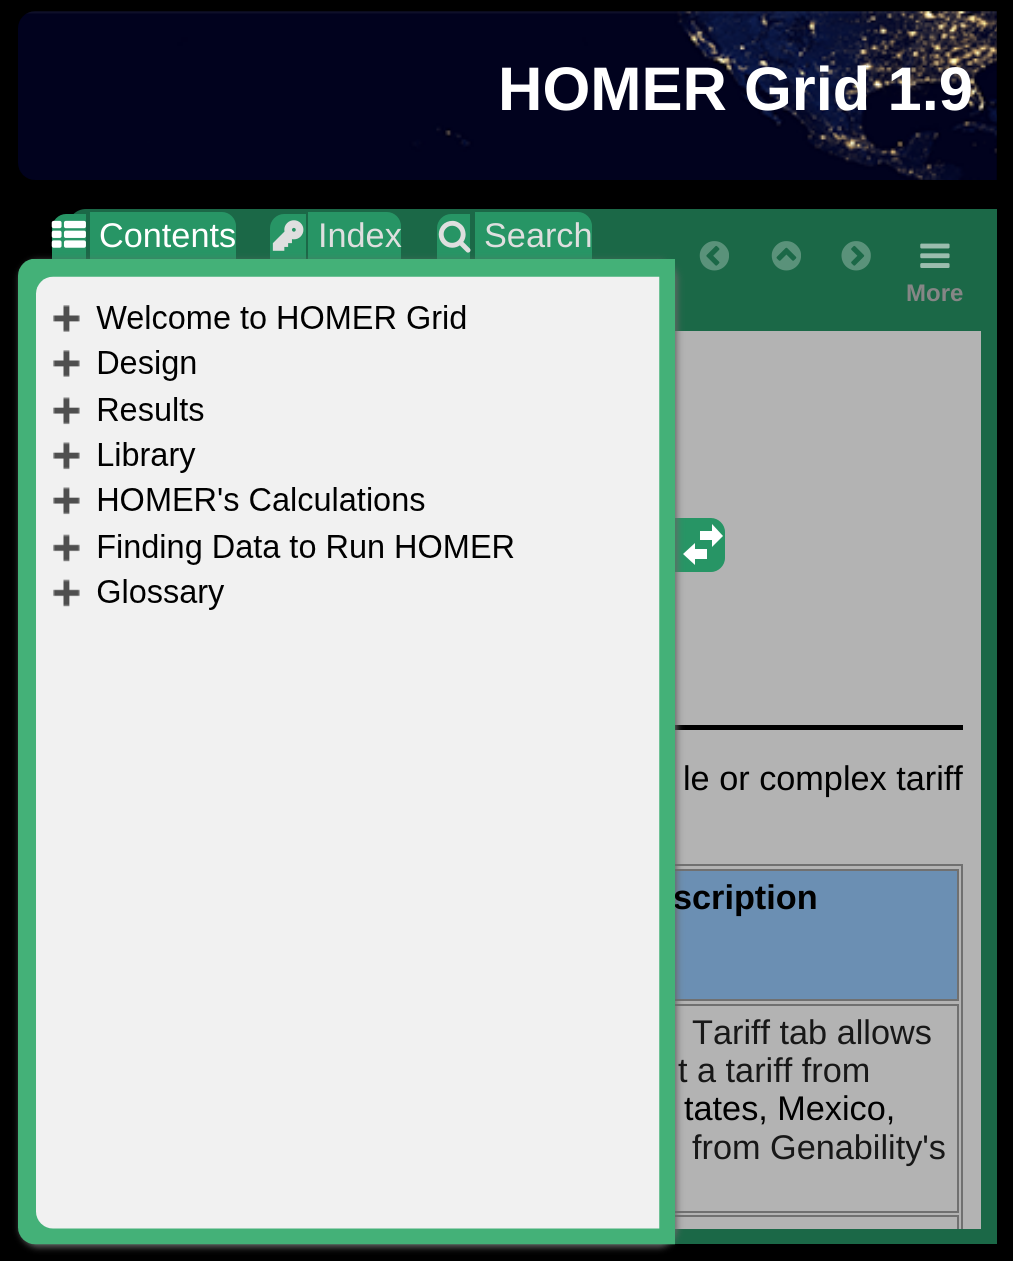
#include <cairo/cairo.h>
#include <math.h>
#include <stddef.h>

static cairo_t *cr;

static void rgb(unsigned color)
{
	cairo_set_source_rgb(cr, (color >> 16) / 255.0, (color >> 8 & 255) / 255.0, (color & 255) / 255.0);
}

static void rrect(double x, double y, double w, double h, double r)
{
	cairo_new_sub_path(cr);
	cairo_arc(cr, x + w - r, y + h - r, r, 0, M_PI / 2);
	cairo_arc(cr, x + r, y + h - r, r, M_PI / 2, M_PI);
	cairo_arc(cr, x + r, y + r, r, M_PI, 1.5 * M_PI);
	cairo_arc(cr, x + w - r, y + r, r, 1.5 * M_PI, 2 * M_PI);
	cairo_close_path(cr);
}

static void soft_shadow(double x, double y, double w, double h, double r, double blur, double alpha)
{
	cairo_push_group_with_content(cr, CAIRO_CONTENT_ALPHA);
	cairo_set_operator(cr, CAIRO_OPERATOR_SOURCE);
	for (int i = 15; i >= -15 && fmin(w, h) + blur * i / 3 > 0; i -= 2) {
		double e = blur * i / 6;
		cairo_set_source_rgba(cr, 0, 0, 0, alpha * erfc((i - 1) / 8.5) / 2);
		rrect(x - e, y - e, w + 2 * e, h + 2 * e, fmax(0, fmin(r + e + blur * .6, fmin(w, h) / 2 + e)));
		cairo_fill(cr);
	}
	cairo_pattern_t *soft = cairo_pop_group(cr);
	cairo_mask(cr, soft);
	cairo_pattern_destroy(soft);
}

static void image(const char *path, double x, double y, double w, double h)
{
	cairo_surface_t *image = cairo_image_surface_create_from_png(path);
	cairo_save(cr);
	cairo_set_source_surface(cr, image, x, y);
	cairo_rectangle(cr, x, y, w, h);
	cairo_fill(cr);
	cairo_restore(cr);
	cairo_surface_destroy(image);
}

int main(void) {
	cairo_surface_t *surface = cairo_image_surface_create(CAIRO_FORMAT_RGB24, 1013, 1261);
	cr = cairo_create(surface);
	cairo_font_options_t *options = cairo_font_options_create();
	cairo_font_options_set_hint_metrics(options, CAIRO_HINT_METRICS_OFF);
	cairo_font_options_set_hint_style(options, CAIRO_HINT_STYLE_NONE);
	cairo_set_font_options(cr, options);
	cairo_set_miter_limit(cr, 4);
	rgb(0x000000);
	cairo_paint(cr);
	image("img/1.png", 18, 11, 979, 169);
	rgb(0x1b6847);
	cairo_new_path(cr);
	cairo_move_to(cr, 86, 209);
	cairo_line_to(cr, 997, 209);
	cairo_line_to(cr, 997, 1244);
	cairo_line_to(cr, 86, 1244);
	cairo_curve_to(cr, 76, 1244, 68, 1236, 68, 1226);
	cairo_line_to(cr, 68, 227);
	cairo_curve_to(cr, 68, 217, 76, 209, 86, 209);
	cairo_close_path(cr);
	cairo_fill(cr);
	rgb(0x279565);
	cairo_new_path(cr);
	cairo_move_to(cr, 66, 214);
	cairo_line_to(cr, 86, 214);
	cairo_line_to(cr, 86, 259);
	cairo_line_to(cr, 52, 259);
	cairo_line_to(cr, 52, 228);
	cairo_curve_to(cr, 52, 220.5, 58.5, 214, 66, 214);
	cairo_close_path(cr);
	cairo_fill(cr);
	cairo_new_path(cr);
	cairo_move_to(cr, 90, 212);
	cairo_line_to(cr, 222, 212);
	cairo_curve_to(cr, 229.5, 212, 236, 218.5, 236, 226);
	cairo_line_to(cr, 236, 261);
	cairo_line_to(cr, 90, 261);
	cairo_close_path(cr);
	cairo_fill(cr);
	image("img/2.png", 51, 220, 35, 28);
	cairo_new_path(cr);
	cairo_move_to(cr, 284, 214);
	cairo_line_to(cr, 306, 214);
	cairo_line_to(cr, 306, 259);
	cairo_line_to(cr, 270, 259);
	cairo_line_to(cr, 270, 228);
	cairo_curve_to(cr, 270, 220.5, 276.5, 214, 284, 214);
	cairo_close_path(cr);
	cairo_fill(cr);
	cairo_new_path(cr);
	cairo_move_to(cr, 308, 212);
	cairo_line_to(cr, 387, 212);
	cairo_curve_to(cr, 394.5, 212, 401, 218.5, 401, 226);
	cairo_line_to(cr, 401, 261);
	cairo_line_to(cr, 308, 261);
	cairo_close_path(cr);
	cairo_fill(cr);
	image("img/3.png", 272, 220, 32, 31);
	cairo_new_path(cr);
	cairo_move_to(cr, 451, 214);
	cairo_line_to(cr, 470, 214);
	cairo_line_to(cr, 470, 259);
	cairo_line_to(cr, 437, 259);
	cairo_line_to(cr, 437, 228);
	cairo_curve_to(cr, 437, 220.5, 443.5, 214, 451, 214);
	cairo_close_path(cr);
	cairo_fill(cr);
	cairo_new_path(cr);
	cairo_move_to(cr, 475, 212);
	cairo_line_to(cr, 578, 212);
	cairo_curve_to(cr, 585.5, 212, 592, 218.5, 592, 226);
	cairo_line_to(cr, 592, 261);
	cairo_line_to(cr, 475, 261);
	cairo_close_path(cr);
	cairo_fill(cr);
	image("img/4.png", 438, 220, 33, 33);
	rgb(0xb3b3b3);
	cairo_rectangle(cr, 675, 331, 306, 898);
	cairo_fill(cr);
	rgb(0x279565);
	cairo_new_path(cr);
	cairo_move_to(cr, 675, 518);
	cairo_line_to(cr, 711, 518);
	cairo_curve_to(cr, 718.5, 518, 725, 524.5, 725, 532);
	cairo_line_to(cr, 725, 558);
	cairo_curve_to(cr, 725, 565.5, 718.5, 572, 711, 572);
	cairo_line_to(cr, 675, 572);
	cairo_close_path(cr);
	cairo_fill(cr);
	rgb(0xffffff);
	cairo_new_path(cr);
	cairo_move_to(cr, 712, 547);
	cairo_line_to(cr, 712, 540);
	cairo_line_to(cr, 700, 540);
	cairo_line_to(cr, 700, 531);
	cairo_line_to(cr, 712, 531);
	cairo_line_to(cr, 712, 524);
	cairo_line_to(cr, 723, 536);
	cairo_close_path(cr);
	cairo_move_to(cr, 683, 554);
	cairo_line_to(cr, 695, 565);
	cairo_line_to(cr, 695, 559);
	cairo_line_to(cr, 707, 559);
	cairo_line_to(cr, 707, 549);
	cairo_line_to(cr, 695, 549);
	cairo_line_to(cr, 695, 543);
	cairo_close_path(cr);
	cairo_fill(cr);
	rgb(0x000000);
	cairo_rectangle(cr, 675, 725, 288, 5);
	cairo_fill(cr);
	rgb(0x707070);
	cairo_new_path(cr);
	cairo_move_to(cr, 97, 864);
	cairo_line_to(cr, 97, 1229);
	cairo_line_to(cr, 99, 1229);
	cairo_line_to(cr, 99, 866);
	cairo_line_to(cr, 961, 866);
	cairo_line_to(cr, 961, 1229);
	cairo_line_to(cr, 963, 1229);
	cairo_line_to(cr, 963, 864);
	cairo_close_path(cr);
	cairo_fill(cr);
	rgb(0x6b8fb3);
	cairo_rectangle(cr, 675, 871, 282, 128);
	cairo_fill(cr);
	cairo_rectangle(cr, 489, 870, 469, 130);
	rgb(0x707070);
	cairo_stroke(cr);
	cairo_rectangle(cr, 489, 1005, 469, 207);
	cairo_stroke(cr);
	cairo_new_path(cr);
	cairo_move_to(cr, 488, 1215);
	cairo_line_to(cr, 488, 1229);
	cairo_line_to(cr, 490, 1229);
	cairo_line_to(cr, 490, 1217);
	cairo_line_to(cr, 957, 1217);
	cairo_line_to(cr, 957, 1229);
	cairo_line_to(cr, 959, 1229);
	cairo_line_to(cr, 959, 1215);
	cairo_close_path(cr);
	cairo_fill(cr);
	rgb(0x676767);
	soft_shadow(20, 261, 657, 986, 18, 3.5, 1);
	image("img/6.png", 699, 241, 30, 30);
	image("img/7.png", 771, 241, 30, 30);
	image("img/8.png", 841, 241, 30, 30);
	image("img/9.png", 920, 243, 30, 25);
	cairo_select_font_face(cr, "Liberation Sans", CAIRO_FONT_SLANT_NORMAL, CAIRO_FONT_WEIGHT_BOLD);
	cairo_set_font_size(cr, 61.5);
	rgb(0xffffff);
	cairo_move_to(cr, 498, 110);
	cairo_show_text(cr, "HOMER Grid 1.9");
	cairo_select_font_face(cr, "Liberation Sans", CAIRO_FONT_SLANT_NORMAL, CAIRO_FONT_WEIGHT_NORMAL);
	cairo_set_font_size(cr, 34.25);
	cairo_move_to(cr, 99, 247);
	cairo_show_text(cr, "Contents");
	rgb(0xdfdfdf);
	cairo_move_to(cr, 318, 247);
	cairo_show_text(cr, "Index");
	cairo_move_to(cr, 484, 247);
	cairo_show_text(cr, "Search");
	cairo_select_font_face(cr, "Liberation Sans", CAIRO_FONT_SLANT_NORMAL, CAIRO_FONT_WEIGHT_BOLD);
	cairo_set_font_size(cr, 24);
	rgb(0x868686);
	cairo_move_to(cr, 906, 301);
	cairo_show_text(cr, "More");
	cairo_select_font_face(cr, "Liberation Sans", CAIRO_FONT_SLANT_NORMAL, CAIRO_FONT_WEIGHT_NORMAL);
	cairo_set_font_size(cr, 34.25);
	rgb(0x000000);
	cairo_move_to(cr, 683, 790);
	cairo_show_text(cr, "le or complex tariff");
	cairo_select_font_face(cr, "Liberation Sans", CAIRO_FONT_SLANT_NORMAL, CAIRO_FONT_WEIGHT_BOLD);
	cairo_move_to(cr, 673, 909);
	cairo_show_text(cr, "scription");
	image("img/5.png", 18, 259, 657, 986);
	cairo_select_font_face(cr, "Liberation Sans", CAIRO_FONT_SLANT_NORMAL, CAIRO_FONT_WEIGHT_NORMAL);
	rgb(0x181818);
	cairo_move_to(cr, 692, 1044);
	cairo_show_text(cr, "Tariff tab allows");
	cairo_move_to(cr, 678, 1082);
	cairo_show_text(cr, "t a tariff from");
	rgb(0x000000);
	cairo_move_to(cr, 684, 1120);
	cairo_show_text(cr, "tates, Mexico,");
	rgb(0x181818);
	cairo_move_to(cr, 692, 1159);
	cairo_show_text(cr, "from Genability's");
	cairo_surface_write_to_png(surface, "page.png");
	cairo_font_options_destroy(options);
	cairo_destroy(cr);
	cairo_surface_destroy(surface);
	return 0;
}
